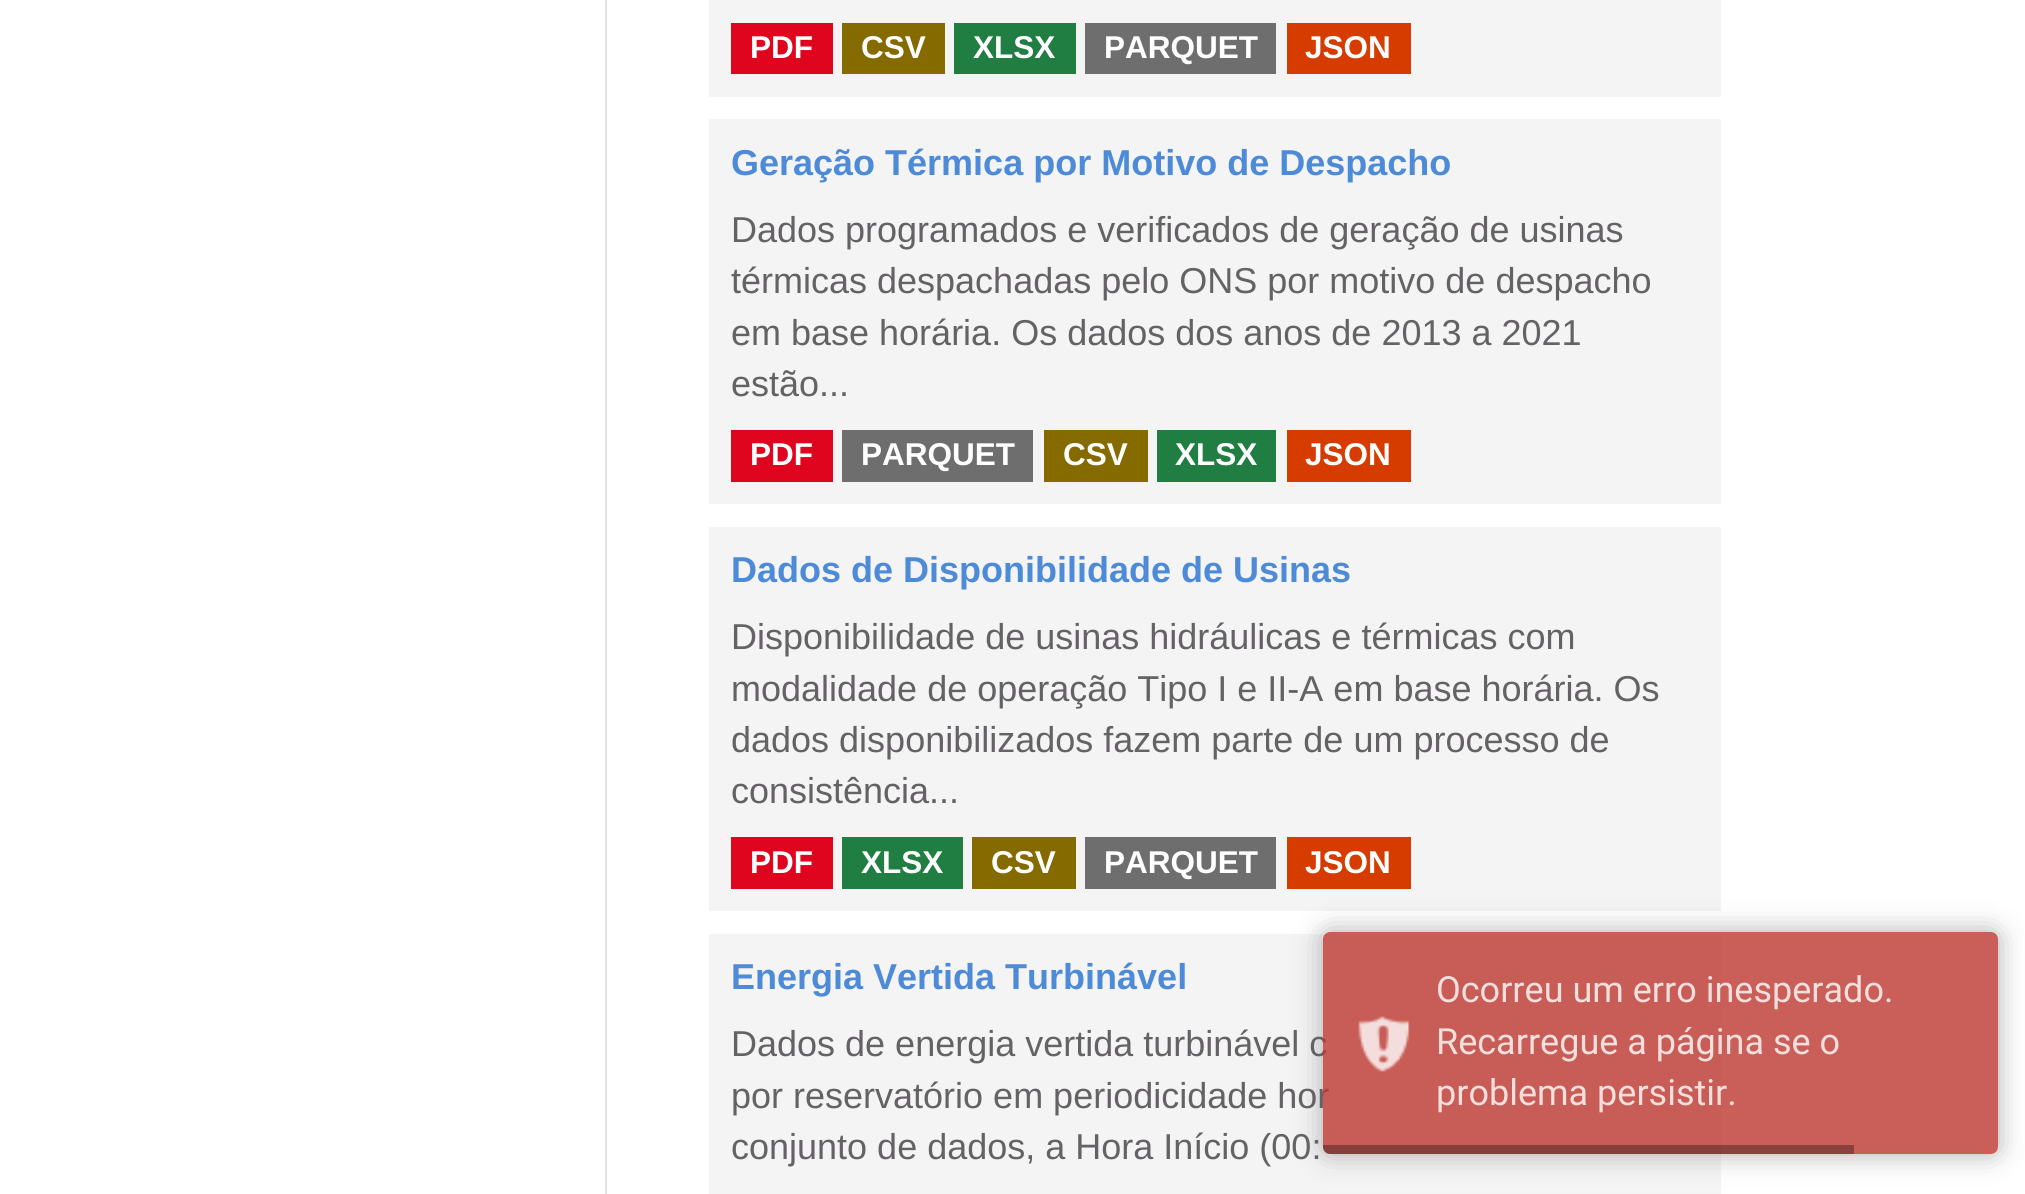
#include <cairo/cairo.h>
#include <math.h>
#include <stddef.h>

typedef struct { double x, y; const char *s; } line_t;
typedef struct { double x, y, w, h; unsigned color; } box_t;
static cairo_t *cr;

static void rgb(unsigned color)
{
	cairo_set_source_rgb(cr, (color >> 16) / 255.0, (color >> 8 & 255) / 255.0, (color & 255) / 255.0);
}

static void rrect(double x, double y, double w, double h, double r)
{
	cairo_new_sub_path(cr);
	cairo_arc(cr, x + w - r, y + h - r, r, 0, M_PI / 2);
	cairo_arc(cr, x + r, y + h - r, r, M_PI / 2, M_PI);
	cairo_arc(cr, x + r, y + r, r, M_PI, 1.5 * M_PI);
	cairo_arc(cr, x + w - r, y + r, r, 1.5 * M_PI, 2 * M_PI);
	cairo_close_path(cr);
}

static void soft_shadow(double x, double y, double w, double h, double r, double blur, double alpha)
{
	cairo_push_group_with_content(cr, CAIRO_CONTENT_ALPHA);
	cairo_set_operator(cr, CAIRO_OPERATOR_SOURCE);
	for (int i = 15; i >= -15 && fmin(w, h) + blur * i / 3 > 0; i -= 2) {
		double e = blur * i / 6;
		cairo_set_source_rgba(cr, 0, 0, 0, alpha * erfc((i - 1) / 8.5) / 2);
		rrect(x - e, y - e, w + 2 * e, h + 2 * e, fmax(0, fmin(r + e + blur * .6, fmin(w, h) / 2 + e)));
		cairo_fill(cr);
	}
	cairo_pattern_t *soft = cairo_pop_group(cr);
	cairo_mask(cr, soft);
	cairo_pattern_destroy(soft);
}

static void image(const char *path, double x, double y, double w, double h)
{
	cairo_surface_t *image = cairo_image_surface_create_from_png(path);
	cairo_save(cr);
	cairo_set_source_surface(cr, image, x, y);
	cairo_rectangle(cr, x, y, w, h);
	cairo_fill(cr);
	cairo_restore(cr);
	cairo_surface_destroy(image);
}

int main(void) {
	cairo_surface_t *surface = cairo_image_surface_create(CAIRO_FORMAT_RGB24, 2025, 1194);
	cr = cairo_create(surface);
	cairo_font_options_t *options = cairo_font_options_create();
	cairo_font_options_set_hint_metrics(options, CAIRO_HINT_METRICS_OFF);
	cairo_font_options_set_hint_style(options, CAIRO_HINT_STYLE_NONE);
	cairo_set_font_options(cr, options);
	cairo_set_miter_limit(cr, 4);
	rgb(0xffffff);
	cairo_paint(cr);
	{
		static const box_t items[] = {
			{605, 0, 2, 1194, 0xe4e3e4},
			{709, 0, 1012, 97, 0xf4f4f4},
			{731, 23, 102, 51, 0xe0051e},
			{842, 23, 103, 51, 0x856a00},
			{954, 23, 122, 51, 0x207e42},
			{1085, 23, 191, 51, 0x6e6e6e},
			{1287, 23, 124, 51, 0xd63b00},
			{709, 119, 1012, 385, 0xf4f4f4},
			{731, 430, 102, 52, 0xe0051e},
			{842, 430, 191, 52, 0x6e6e6e},
			{1044, 430, 104, 52, 0x856a00},
			{1157, 430, 119, 52, 0x207e42},
			{1287, 430, 124, 52, 0xd63b00},
			{709, 527, 1012, 384, 0xf4f4f4},
			{731, 837, 102, 52, 0xe0051e},
			{842, 837, 121, 52, 0x207e42},
			{972, 837, 104, 52, 0x856a00},
			{1085, 837, 191, 52, 0x6e6e6e},
			{1287, 837, 124, 52, 0xd63b00},
			{709, 934, 1012, 260, 0xf4f4f4},
		};
		for (size_t i = 0; i < sizeof items / sizeof *items; i++) {
			rgb(items[i].color);
			cairo_rectangle(cr, items[i].x, items[i].y, items[i].w, items[i].h);
			cairo_fill(cr);
		}
	}
	cairo_save(cr);
	cairo_set_fill_rule(cr, CAIRO_FILL_RULE_EVEN_ODD);
	cairo_new_path(cr);
	cairo_move_to(cr, 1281, 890);
	cairo_line_to(cr, 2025, 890);
	cairo_line_to(cr, 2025, 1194);
	cairo_line_to(cr, 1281, 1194);
	cairo_close_path(cr);
	cairo_move_to(cr, 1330, 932);
	cairo_line_to(cr, 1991, 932);
	cairo_curve_to(cr, 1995, 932, 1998, 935, 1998, 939);
	cairo_line_to(cr, 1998, 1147);
	cairo_curve_to(cr, 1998, 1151, 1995, 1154, 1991, 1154);
	cairo_line_to(cr, 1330, 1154);
	cairo_curve_to(cr, 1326, 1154, 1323, 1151, 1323, 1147);
	cairo_line_to(cr, 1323, 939);
	cairo_curve_to(cr, 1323, 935, 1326, 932, 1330, 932);
	cairo_close_path(cr);
	cairo_clip(cr);
	rgb(0x999999);
	soft_shadow(1323, 932, 675, 222, 7, 13.5, 0.8);
	cairo_restore(cr);
	cairo_select_font_face(cr, "Liberation Sans", CAIRO_FONT_SLANT_NORMAL, CAIRO_FONT_WEIGHT_BOLD);
	cairo_set_font_size(cr, 31.5);
	rgb(0xffffff);
	{
		static const line_t items[] = {
			{750, 58, "PDF"},
			{861, 58, "CSV"},
			{973, 58, "XLSX"},
			{1104, 58, "PARQUET"},
			{1305, 58, "JSON"},
		};
		for (size_t i = 0; i < sizeof items / sizeof *items; i++) {
			cairo_move_to(cr, items[i].x, items[i].y);
			cairo_show_text(cr, items[i].s);
		}
	}
	cairo_set_font_size(cr, 36);
	rgb(0x4d8ad8);
	cairo_move_to(cr, 731, 175);
	cairo_show_text(cr, "Geração Térmica por Motivo de Despacho");
	cairo_select_font_face(cr, "Liberation Sans", CAIRO_FONT_SLANT_NORMAL, CAIRO_FONT_WEIGHT_NORMAL);
	rgb(0x656266);
	{
		static const line_t items[] = {
			{731, 242, "Dados programados e verificados de geração de usinas"},
			{731, 293, "térmicas despachadas pelo ONS por motivo de despacho"},
			{731, 345, "em base horária. Os dados dos anos de 2013 a 2021"},
			{731, 396, "estão..."},
		};
		for (size_t i = 0; i < sizeof items / sizeof *items; i++) {
			cairo_move_to(cr, items[i].x, items[i].y);
			cairo_show_text(cr, items[i].s);
		}
	}
	cairo_select_font_face(cr, "Liberation Sans", CAIRO_FONT_SLANT_NORMAL, CAIRO_FONT_WEIGHT_BOLD);
	cairo_set_font_size(cr, 31.5);
	rgb(0xffffff);
	{
		static const line_t items[] = {
			{750, 465, "PDF"},
			{861, 465, "PARQUET"},
			{1063, 465, "CSV"},
			{1175, 465, "XLSX"},
			{1305, 465, "JSON"},
		};
		for (size_t i = 0; i < sizeof items / sizeof *items; i++) {
			cairo_move_to(cr, items[i].x, items[i].y);
			cairo_show_text(cr, items[i].s);
		}
	}
	cairo_set_font_size(cr, 36);
	rgb(0x4d8ad8);
	cairo_move_to(cr, 731, 582);
	cairo_show_text(cr, "Dados de Disponibilidade de Usinas");
	cairo_select_font_face(cr, "Liberation Sans", CAIRO_FONT_SLANT_NORMAL, CAIRO_FONT_WEIGHT_NORMAL);
	rgb(0x656266);
	{
		static const line_t items[] = {
			{731, 649, "Disponibilidade de usinas hidráulicas e térmicas com"},
			{731, 701, "modalidade de operação Tipo I e II-A em base horária. Os"},
			{731, 752, "dados disponibilizados fazem parte de um processo de"},
			{731, 803, "consistência..."},
		};
		for (size_t i = 0; i < sizeof items / sizeof *items; i++) {
			cairo_move_to(cr, items[i].x, items[i].y);
			cairo_show_text(cr, items[i].s);
		}
	}
	cairo_select_font_face(cr, "Liberation Sans", CAIRO_FONT_SLANT_NORMAL, CAIRO_FONT_WEIGHT_BOLD);
	cairo_set_font_size(cr, 31.5);
	rgb(0xffffff);
	{
		static const line_t items[] = {
			{750, 873, "PDF"},
			{861, 873, "XLSX"},
			{991, 873, "CSV"},
			{1104, 873, "PARQUET"},
			{1305, 873, "JSON"},
		};
		for (size_t i = 0; i < sizeof items / sizeof *items; i++) {
			cairo_move_to(cr, items[i].x, items[i].y);
			cairo_show_text(cr, items[i].s);
		}
	}
	cairo_set_font_size(cr, 36);
	rgb(0x4d8ad8);
	cairo_move_to(cr, 731, 989);
	cairo_show_text(cr, "Energia Vertida Turbinável");
	cairo_select_font_face(cr, "Liberation Sans", CAIRO_FONT_SLANT_NORMAL, CAIRO_FONT_WEIGHT_NORMAL);
	rgb(0x656266);
	{
		static const line_t items[] = {
			{731, 1056, "Dados de energia vertida turbinável c"},
			{731, 1108, "por reservatório em periodicidade hor"},
			{731, 1159, "conjunto de dados, a Hora Início (00:"},
		};
		for (size_t i = 0; i < sizeof items / sizeof *items; i++) {
			cairo_move_to(cr, items[i].x, items[i].y);
			cairo_show_text(cr, items[i].s);
		}
	}
	cairo_set_source_rgba(cr, 0.741, 0.212, 0.184, 0.8);
	rrect(1323, 932, 675, 222, 7);
	cairo_fill(cr);
	image("img/1.png", 1358, 1016, 52, 56);
	cairo_select_font_face(cr, "Roboto", CAIRO_FONT_SLANT_NORMAL, CAIRO_FONT_WEIGHT_NORMAL);
	rgb(0xf4dfdd);
	{
		static const line_t items[] = {
			{1436, 1002, "Ocorreu um erro inesperado."},
			{1436, 1054, "Recarregue a página se o"},
			{1436, 1105, "problema persistir."},
		};
		for (size_t i = 0; i < sizeof items / sizeof *items; i++) {
			cairo_move_to(cr, items[i].x, items[i].y);
			cairo_show_text(cr, items[i].s);
		}
	}
	cairo_set_source_rgba(cr, 0, 0, 0, 0.32);
	cairo_new_path(cr);
	cairo_move_to(cr, 1323, 1145);
	cairo_line_to(cr, 1854, 1145);
	cairo_line_to(cr, 1854, 1154);
	cairo_line_to(cr, 1330, 1154);
	cairo_curve_to(cr, 1326, 1154, 1323, 1151, 1323, 1147);
	cairo_close_path(cr);
	cairo_fill(cr);
	cairo_surface_write_to_png(surface, "page.png");
	cairo_font_options_destroy(options);
	cairo_destroy(cr);
	cairo_surface_destroy(surface);
	return 0;
}
